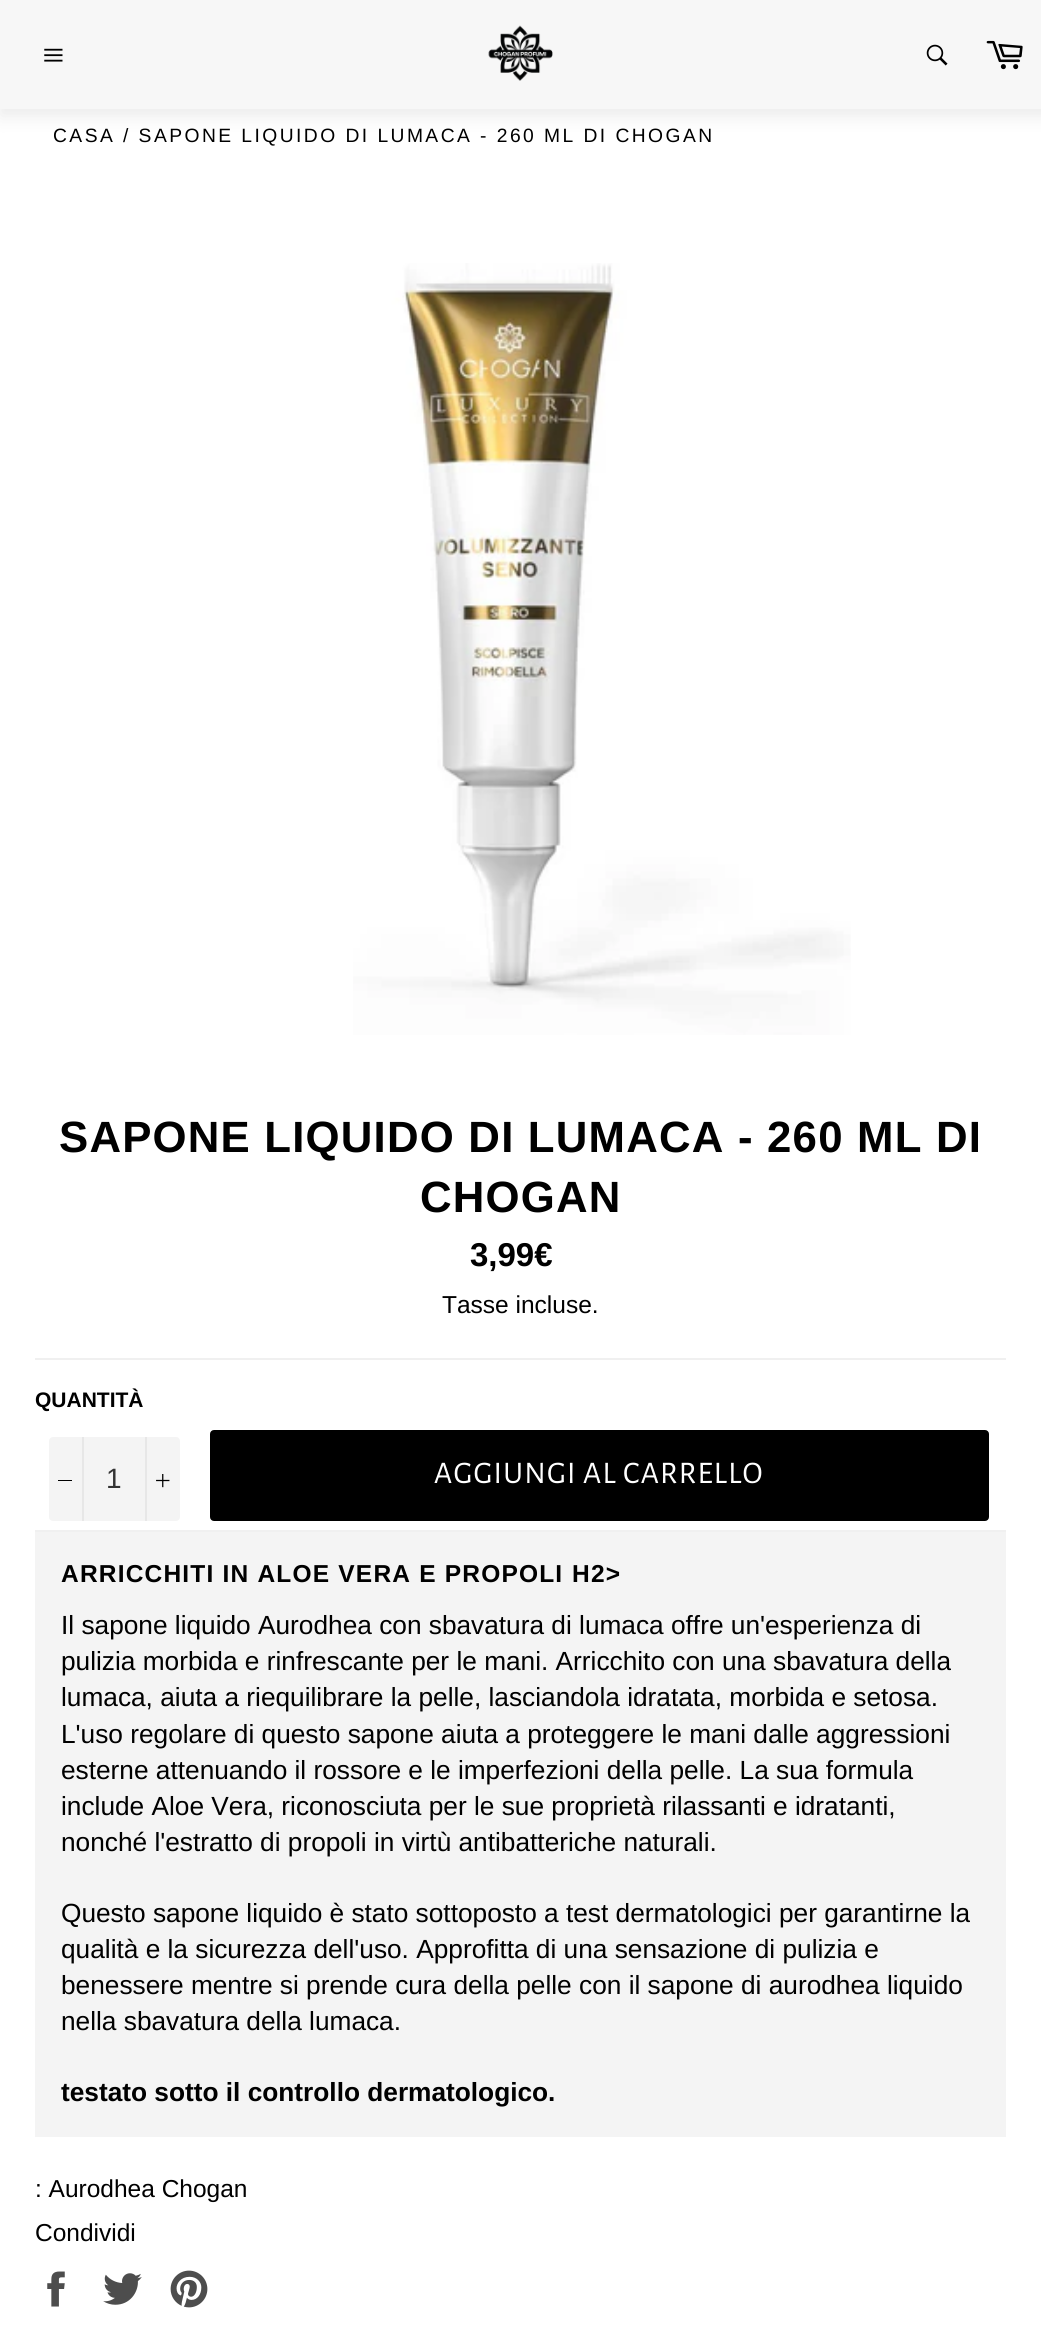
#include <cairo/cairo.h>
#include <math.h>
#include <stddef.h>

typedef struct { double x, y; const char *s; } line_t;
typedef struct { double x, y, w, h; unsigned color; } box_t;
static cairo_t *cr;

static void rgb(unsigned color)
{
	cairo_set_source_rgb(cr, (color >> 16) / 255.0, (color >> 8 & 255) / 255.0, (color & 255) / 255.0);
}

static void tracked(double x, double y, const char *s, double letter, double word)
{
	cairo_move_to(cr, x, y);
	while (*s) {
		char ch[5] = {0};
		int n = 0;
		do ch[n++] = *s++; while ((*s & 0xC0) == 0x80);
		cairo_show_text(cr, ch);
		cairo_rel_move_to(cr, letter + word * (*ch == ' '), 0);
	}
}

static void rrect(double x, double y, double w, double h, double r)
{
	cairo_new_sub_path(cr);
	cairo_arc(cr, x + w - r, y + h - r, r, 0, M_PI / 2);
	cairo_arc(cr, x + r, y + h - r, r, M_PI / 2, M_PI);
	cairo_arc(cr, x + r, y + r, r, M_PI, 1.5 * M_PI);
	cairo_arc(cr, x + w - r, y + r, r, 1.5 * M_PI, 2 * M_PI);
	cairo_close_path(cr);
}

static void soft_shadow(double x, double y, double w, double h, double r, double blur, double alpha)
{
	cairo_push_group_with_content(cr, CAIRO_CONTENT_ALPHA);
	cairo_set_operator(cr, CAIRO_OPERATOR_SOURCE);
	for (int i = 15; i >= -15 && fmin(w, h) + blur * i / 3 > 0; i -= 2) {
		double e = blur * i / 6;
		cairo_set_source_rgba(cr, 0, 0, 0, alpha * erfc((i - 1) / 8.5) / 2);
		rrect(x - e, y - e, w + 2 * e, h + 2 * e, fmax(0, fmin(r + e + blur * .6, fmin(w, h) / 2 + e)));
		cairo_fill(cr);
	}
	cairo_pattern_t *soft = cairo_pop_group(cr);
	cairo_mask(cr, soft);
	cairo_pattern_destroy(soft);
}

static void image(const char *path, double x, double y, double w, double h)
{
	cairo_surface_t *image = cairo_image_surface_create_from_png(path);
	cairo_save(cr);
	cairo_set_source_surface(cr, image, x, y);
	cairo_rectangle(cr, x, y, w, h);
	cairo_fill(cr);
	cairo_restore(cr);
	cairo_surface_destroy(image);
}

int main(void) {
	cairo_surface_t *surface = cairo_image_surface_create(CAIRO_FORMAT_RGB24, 1041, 2341);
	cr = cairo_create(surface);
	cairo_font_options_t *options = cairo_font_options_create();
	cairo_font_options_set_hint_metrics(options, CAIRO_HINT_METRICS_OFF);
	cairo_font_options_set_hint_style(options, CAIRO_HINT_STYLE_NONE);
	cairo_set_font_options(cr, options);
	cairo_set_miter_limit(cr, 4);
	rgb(0xffffff);
	cairo_paint(cr);
	rgb(0x999999);
	soft_shadow(0, 0, 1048, 116, 0, 9, 0.2);
	rgb(0xf7f7f7);
	cairo_rectangle(cr, 0, 0, 1041, 109);
	cairo_fill(cr);
	image("img/1.png", 44, 48, 19, 14);
	image("img/2.png", 488, 25, 65, 56);
	image("img/3.png", 926, 44, 22, 22);
	image("img/4.png", 986, 40, 37, 30);
	image("img/5.png", 353, 263, 498, 772);
	rgb(0xf0f0f0);
	cairo_rectangle(cr, 35, 1358, 971, 2);
	cairo_fill(cr);
	rgb(0xf4f4f4);
	rrect(49, 1437, 131, 84, 4);
	cairo_fill(cr);
	{
		static const box_t items[] = {
			{82, 1437, 2, 84, 0xe7e7e7},
			{58, 1480, 14, 1, 0x000000},
			{145, 1437, 2, 84, 0xe7e7e7},
		};
		for (size_t i = 0; i < sizeof items / sizeof *items; i++) {
			rgb(items[i].color);
			cairo_rectangle(cr, items[i].x, items[i].y, items[i].w, items[i].h);
			cairo_fill(cr);
		}
	}
	image("img/6.png", 156, 1474, 14, 14);
	rgb(0x000000);
	rrect(212, 1432, 775, 87, 2);
	cairo_fill_preserve(cr);
	cairo_set_line_width(cr, 4);
	cairo_stroke(cr);
	rgb(0xf0f0f0);
	cairo_rectangle(cr, 35, 1530, 971, 2);
	cairo_fill(cr);
	rgb(0xf4f4f4);
	cairo_rectangle(cr, 35, 1532, 971, 605);
	cairo_fill(cr);
	image("img/7.png", 47, 2271, 18, 36);
	image("img/8.png", 103, 2273, 39, 32);
	image("img/9.png", 170, 2270, 38, 38);
	cairo_select_font_face(cr, "Arimo", CAIRO_FONT_SLANT_NORMAL, CAIRO_FONT_WEIGHT_NORMAL);
	cairo_set_font_size(cr, 19.25);
	rgb(0x000000);
	tracked(53, 142, "CASA / SAPONE LIQUIDO DI LUMACA - 260 ML DI CHOGAN", 2.45, 0);
	cairo_select_font_face(cr, "Arimo", CAIRO_FONT_SLANT_NORMAL, CAIRO_FONT_WEIGHT_BOLD);
	cairo_set_font_size(cr, 43.75);
	tracked(59, 1152, "SAPONE LIQUIDO DI LUMACA - 260 ML DI", 1.2, 0);
	tracked(420, 1212, "CHOGAN", 1.2, 0);
	cairo_set_font_size(cr, 33);
	cairo_move_to(cr, 470, 1266);
	cairo_show_text(cr, "3,99€");
	cairo_select_font_face(cr, "Arimo", CAIRO_FONT_SLANT_NORMAL, CAIRO_FONT_WEIGHT_NORMAL);
	cairo_set_font_size(cr, 24.5);
	cairo_move_to(cr, 442, 1313);
	cairo_show_text(cr, "Tasse incluse.");
	cairo_select_font_face(cr, "Arimo", CAIRO_FONT_SLANT_NORMAL, CAIRO_FONT_WEIGHT_BOLD);
	cairo_set_font_size(cr, 21);
	cairo_move_to(cr, 35, 1407);
	cairo_show_text(cr, "QUANTITÀ");
	cairo_select_font_face(cr, "Arimo", CAIRO_FONT_SLANT_NORMAL, CAIRO_FONT_WEIGHT_NORMAL);
	cairo_set_font_size(cr, 28);
	rgb(0x333333);
	cairo_move_to(cr, 106, 1488);
	cairo_show_text(cr, "1");
	cairo_select_font_face(cr, "Alegreya Sans", CAIRO_FONT_SLANT_NORMAL, CAIRO_FONT_WEIGHT_NORMAL);
	cairo_set_font_size(cr, 31.5);
	rgb(0xffffff);
	tracked(434, 1483, "AGGIUNGI AL CARRELLO", 1.2, 0);
	cairo_select_font_face(cr, "Arimo", CAIRO_FONT_SLANT_NORMAL, CAIRO_FONT_WEIGHT_BOLD);
	cairo_set_font_size(cr, 24.5);
	rgb(0x000000);
	tracked(61, 1582, "ARRICCHITI IN ALOE VERA E PROPOLI", 1.2, 0);
	tracked(572, 1582, "H2>", 1.2, 0);
	cairo_select_font_face(cr, "Arimo", CAIRO_FONT_SLANT_NORMAL, CAIRO_FONT_WEIGHT_NORMAL);
	cairo_set_font_size(cr, 26.25);
	{
		static const line_t items[] = {
			{61, 1634, "Il sapone liquido Aurodhea con sbavatura di lumaca offre un'esperienza di"},
			{61, 1670, "pulizia morbida e rinfrescante per le mani. Arricchito con una sbavatura della"},
			{61, 1706, "lumaca, aiuta a riequilibrare la pelle, lasciandola idratata, morbida e setosa."},
			{61, 1743, "L'uso regolare di questo sapone aiuta a proteggere le mani dalle aggressioni"},
			{61, 1779, "esterne attenuando il rossore e le imperfezioni della pelle. La sua formula"},
			{61, 1815, "include Aloe Vera, riconosciuta per le sue proprietà rilassanti e idratanti,"},
			{61, 1851, "nonché l'estratto di propoli in virtù antibatteriche naturali."},
			{61, 1922, "Questo sapone liquido è stato sottoposto a test dermatologici per garantirne la"},
			{61, 1958, "qualità e la sicurezza dell'uso. Approfitta di una sensazione di pulizia e"},
			{61, 1994, "benessere mentre si prende cura della pelle con il sapone di aurodhea liquido"},
			{61, 2030, "nella sbavatura della lumaca."},
		};
		for (size_t i = 0; i < sizeof items / sizeof *items; i++) {
			cairo_move_to(cr, items[i].x, items[i].y);
			cairo_show_text(cr, items[i].s);
		}
	}
	cairo_select_font_face(cr, "Arimo", CAIRO_FONT_SLANT_NORMAL, CAIRO_FONT_WEIGHT_BOLD);
	cairo_move_to(cr, 61, 2101);
	cairo_show_text(cr, "testato sotto il controllo dermatologico.");
	cairo_select_font_face(cr, "Arimo", CAIRO_FONT_SLANT_NORMAL, CAIRO_FONT_WEIGHT_NORMAL);
	cairo_set_font_size(cr, 24.5);
	cairo_move_to(cr, 35, 2197);
	cairo_show_text(cr, ": Aurodhea Chogan");
	cairo_move_to(cr, 35, 2241);
	cairo_show_text(cr, "Condividi");
	cairo_surface_write_to_png(surface, "page.png");
	cairo_font_options_destroy(options);
	cairo_destroy(cr);
	cairo_surface_destroy(surface);
	return 0;
}
